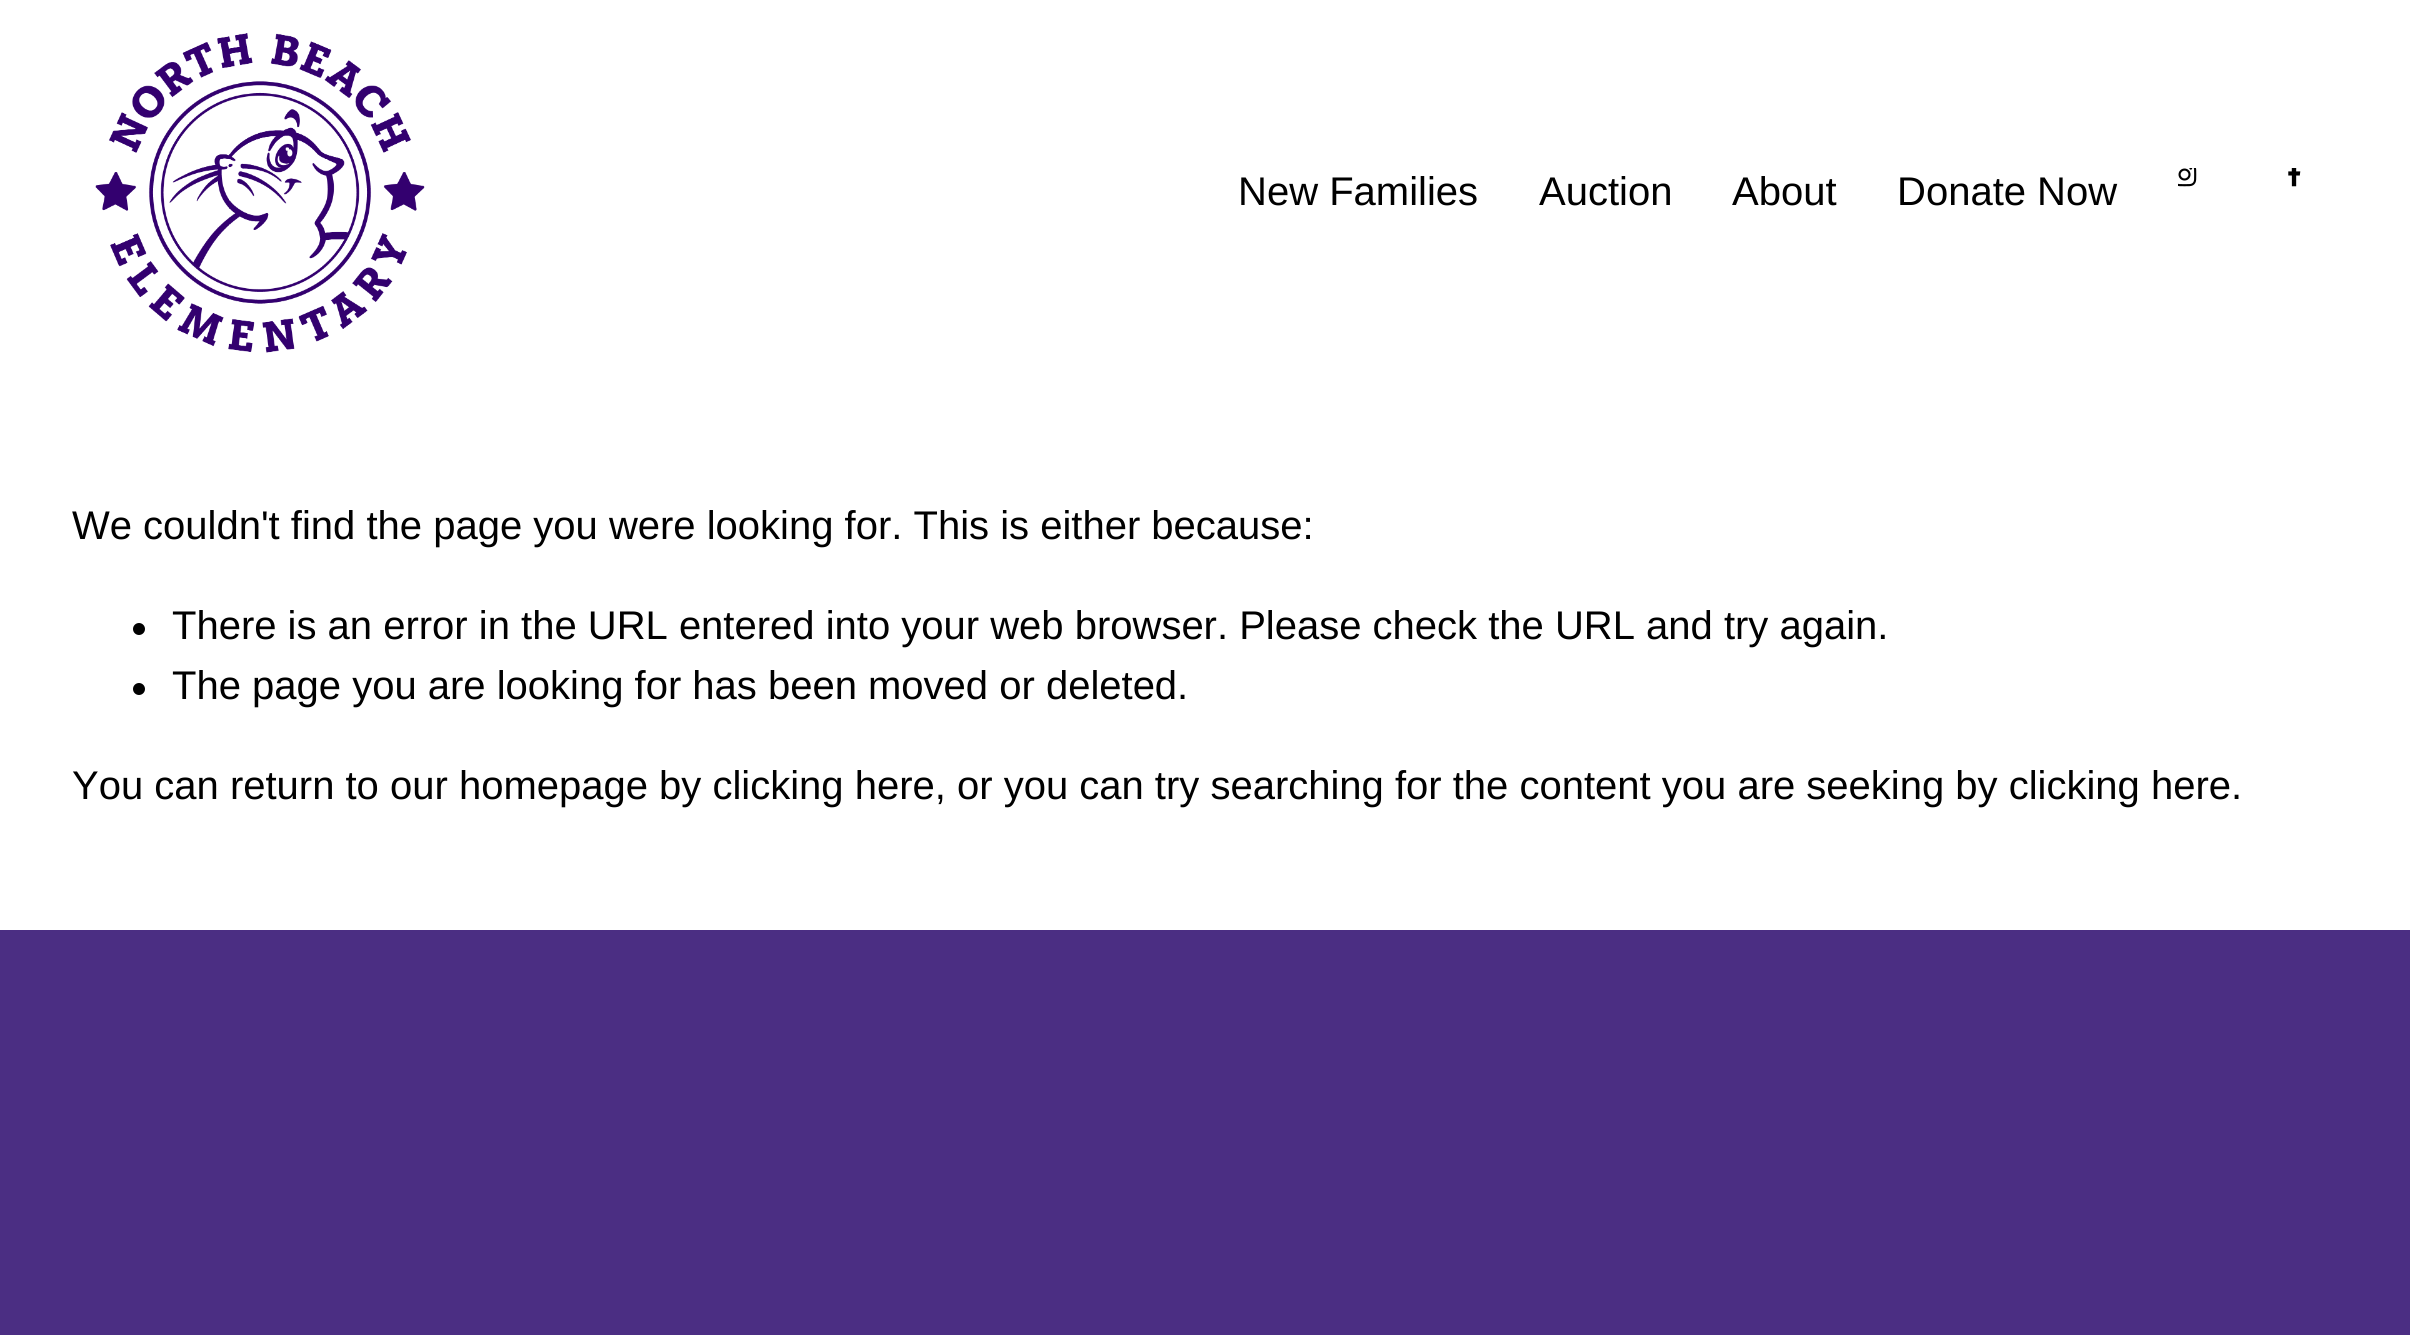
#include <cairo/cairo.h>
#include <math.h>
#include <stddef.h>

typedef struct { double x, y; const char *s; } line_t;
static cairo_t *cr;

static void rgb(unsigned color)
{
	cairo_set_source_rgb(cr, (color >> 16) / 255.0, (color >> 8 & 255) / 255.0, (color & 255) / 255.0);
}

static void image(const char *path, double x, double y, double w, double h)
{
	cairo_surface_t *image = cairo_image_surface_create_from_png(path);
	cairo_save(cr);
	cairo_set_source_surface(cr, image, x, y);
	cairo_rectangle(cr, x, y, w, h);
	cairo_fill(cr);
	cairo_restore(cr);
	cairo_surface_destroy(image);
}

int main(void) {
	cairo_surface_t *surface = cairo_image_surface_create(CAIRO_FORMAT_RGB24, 2410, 1335);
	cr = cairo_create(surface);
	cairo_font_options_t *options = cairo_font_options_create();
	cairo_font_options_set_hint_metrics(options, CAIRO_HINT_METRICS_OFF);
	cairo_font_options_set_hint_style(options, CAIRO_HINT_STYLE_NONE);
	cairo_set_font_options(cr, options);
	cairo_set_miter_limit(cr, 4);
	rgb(0xffffff);
	cairo_paint(cr);
	image("img/1.png", 95, 33, 330, 320);
	image("img/2.png", 2178, 168, 19, 19);
	image("img/3.png", 2288, 168, 13, 19);
	rgb(0x000000);
	cairo_arc(cr, 139, 629, 6, 0, 2 * M_PI);
	cairo_fill(cr);
	cairo_arc(cr, 139, 689, 6, 0, 2 * M_PI);
	cairo_fill(cr);
	rgb(0x4b2e83);
	cairo_rectangle(cr, 0, 930, 2410, 405);
	cairo_fill(cr);
	cairo_select_font_face(cr, "Arimo", CAIRO_FONT_SLANT_NORMAL, CAIRO_FONT_WEIGHT_NORMAL);
	cairo_set_font_size(cr, 40);
	rgb(0x000000);
	{
		static const line_t items[] = {
			{1238, 205, "New Families"},
			{1539, 205, "Auction"},
			{1732, 205, "About"},
			{1897, 205, "Donate Now"},
			{72, 539, "We couldn't find the page you were looking for. This is either because:"},
			{172, 639, "There is an error in the URL entered into your web browser. Please check the URL and try again."},
			{172, 699, "The page you are looking for has been moved or deleted."},
			{72, 799, "You can return to our homepage by clicking here, or you can try searching for the content you are seeking by clicking here."},
		};
		for (size_t i = 0; i < sizeof items / sizeof *items; i++) {
			cairo_move_to(cr, items[i].x, items[i].y);
			cairo_show_text(cr, items[i].s);
		}
	}
	cairo_surface_write_to_png(surface, "page.png");
	cairo_font_options_destroy(options);
	cairo_destroy(cr);
	cairo_surface_destroy(surface);
	return 0;
}
